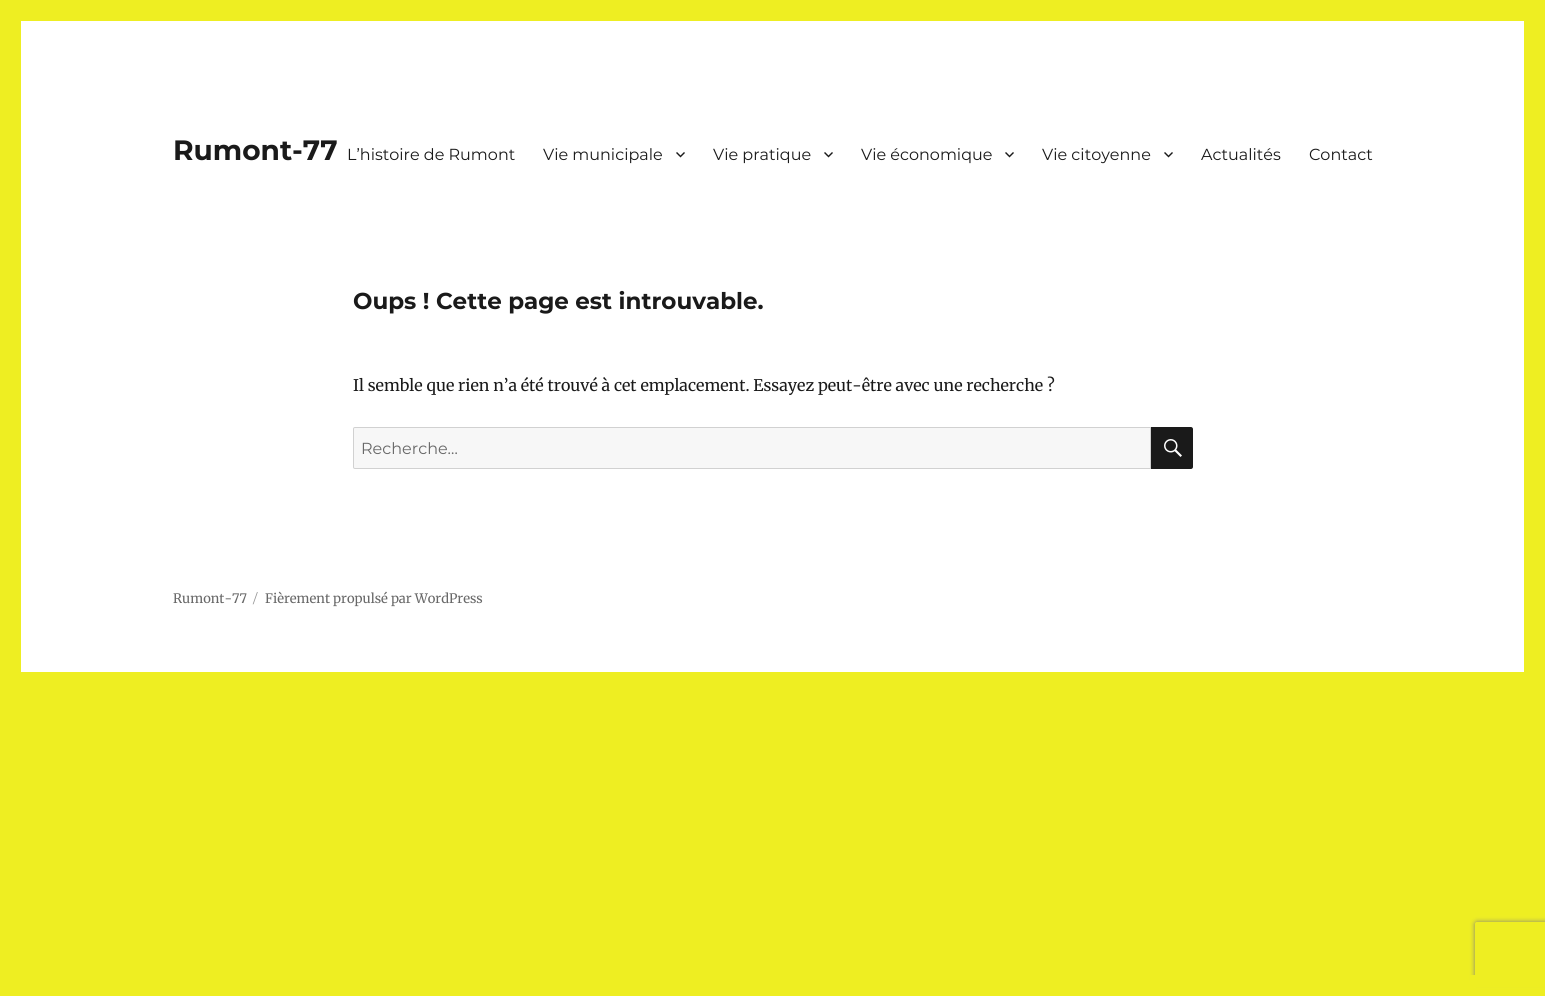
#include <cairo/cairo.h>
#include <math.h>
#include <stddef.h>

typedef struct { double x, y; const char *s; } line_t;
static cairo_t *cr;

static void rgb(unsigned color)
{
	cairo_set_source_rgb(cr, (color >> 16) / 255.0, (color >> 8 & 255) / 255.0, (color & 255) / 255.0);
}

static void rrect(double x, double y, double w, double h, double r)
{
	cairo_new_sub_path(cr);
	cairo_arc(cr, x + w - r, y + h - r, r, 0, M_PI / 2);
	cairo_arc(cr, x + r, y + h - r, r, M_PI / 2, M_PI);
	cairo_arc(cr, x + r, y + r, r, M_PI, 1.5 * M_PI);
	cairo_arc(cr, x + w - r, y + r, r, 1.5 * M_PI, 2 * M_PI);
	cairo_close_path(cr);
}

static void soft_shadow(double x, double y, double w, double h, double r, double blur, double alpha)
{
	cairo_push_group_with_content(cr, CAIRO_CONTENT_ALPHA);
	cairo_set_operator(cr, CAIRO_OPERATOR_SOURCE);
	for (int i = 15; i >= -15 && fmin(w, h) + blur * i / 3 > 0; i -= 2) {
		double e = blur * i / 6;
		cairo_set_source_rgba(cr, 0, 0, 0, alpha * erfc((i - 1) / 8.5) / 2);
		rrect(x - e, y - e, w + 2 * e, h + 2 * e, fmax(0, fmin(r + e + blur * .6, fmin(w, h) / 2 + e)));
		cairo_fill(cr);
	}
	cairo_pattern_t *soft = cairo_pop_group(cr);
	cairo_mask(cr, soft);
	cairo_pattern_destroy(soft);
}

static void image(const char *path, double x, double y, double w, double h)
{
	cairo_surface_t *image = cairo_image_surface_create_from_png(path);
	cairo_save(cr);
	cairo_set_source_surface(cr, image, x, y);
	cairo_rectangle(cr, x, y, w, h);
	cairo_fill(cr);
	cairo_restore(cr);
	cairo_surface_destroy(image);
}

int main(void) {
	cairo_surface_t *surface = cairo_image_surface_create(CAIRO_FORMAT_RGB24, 1545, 996);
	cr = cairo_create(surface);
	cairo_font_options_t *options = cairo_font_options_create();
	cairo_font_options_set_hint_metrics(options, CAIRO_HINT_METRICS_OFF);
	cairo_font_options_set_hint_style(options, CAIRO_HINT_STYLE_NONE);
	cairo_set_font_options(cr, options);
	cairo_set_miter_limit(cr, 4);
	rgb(0xeeee22);
	cairo_paint(cr);
	rgb(0xffffff);
	cairo_rectangle(cr, 21, 21, 1503, 651);
	cairo_fill(cr);
	image("img/1.png", 676, 152, 9, 6);
	image("img/1.png", 824, 152, 9, 6);
	image("img/1.png", 1005, 152, 9, 6);
	image("img/1.png", 1164, 152, 9, 6);
	rgb(0xf7f7f7);
	cairo_new_path(cr);
	cairo_move_to(cr, 355, 427.5);
	cairo_line_to(cr, 1150.5, 427.5);
	cairo_line_to(cr, 1150.5, 468.5);
	cairo_line_to(cr, 355, 468.5);
	cairo_curve_to(cr, 354, 468.5, 353.5, 468, 353.5, 467);
	cairo_line_to(cr, 353.5, 429);
	cairo_curve_to(cr, 353.5, 428, 354, 427.5, 355, 427.5);
	cairo_close_path(cr);
	cairo_fill_preserve(cr);
	rgb(0xd1d1d1);
	cairo_set_line_width(cr, 1);
	cairo_stroke(cr);
	rgb(0x1a1a1a);
	cairo_new_path(cr);
	cairo_move_to(cr, 1151, 427);
	cairo_line_to(cr, 1191, 427);
	cairo_curve_to(cr, 1192, 427, 1193, 428, 1193, 429);
	cairo_line_to(cr, 1193, 467);
	cairo_curve_to(cr, 1193, 468, 1192, 469, 1191, 469);
	cairo_line_to(cr, 1151, 469);
	cairo_close_path(cr);
	cairo_fill(cr);
	image("img/2.png", 1164, 439, 18, 18);
	cairo_save(cr);
	cairo_set_fill_rule(cr, CAIRO_FILL_RULE_EVEN_ODD);
	cairo_new_path(cr);
	cairo_move_to(cr, 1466, 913);
	cairo_line_to(cr, 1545, 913);
	cairo_line_to(cr, 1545, 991);
	cairo_line_to(cr, 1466, 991);
	cairo_close_path(cr);
	cairo_move_to(cr, 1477, 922);
	cairo_line_to(cr, 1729, 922);
	cairo_curve_to(cr, 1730, 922, 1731, 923, 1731, 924);
	cairo_line_to(cr, 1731, 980);
	cairo_curve_to(cr, 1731, 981, 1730, 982, 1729, 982);
	cairo_line_to(cr, 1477, 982);
	cairo_curve_to(cr, 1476, 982, 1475, 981, 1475, 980);
	cairo_line_to(cr, 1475, 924);
	cairo_curve_to(cr, 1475, 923, 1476, 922, 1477, 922);
	cairo_close_path(cr);
	cairo_clip(cr);
	rgb(0x808080);
	soft_shadow(1475, 922, 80, 60, 2, 2.5, 1);
	cairo_restore(cr);
	rgb(0xeeee22);
	cairo_rectangle(cr, 1470, 975, 75, 12);
	cairo_fill(cr);
	cairo_select_font_face(cr, "Montserrat", CAIRO_FONT_SLANT_NORMAL, CAIRO_FONT_WEIGHT_BOLD);
	cairo_set_font_size(cr, 28);
	rgb(0x1a1a1a);
	cairo_move_to(cr, 173, 160);
	cairo_show_text(cr, "Rumont-77");
	cairo_select_font_face(cr, "Montserrat", CAIRO_FONT_SLANT_NORMAL, CAIRO_FONT_WEIGHT_NORMAL);
	cairo_set_font_size(cr, 16);
	{
		static const line_t items[] = {
			{347, 160, "L’histoire de Rumont"},
			{543, 160, "Vie municipale"},
			{713, 160, "Vie pratique"},
			{861, 160, "Vie économique"},
			{1042, 160, "Vie citoyenne"},
			{1201, 160, "Actualités"},
			{1309, 160, "Contact"},
		};
		for (size_t i = 0; i < sizeof items / sizeof *items; i++) {
			cairo_move_to(cr, items[i].x, items[i].y);
			cairo_show_text(cr, items[i].s);
		}
	}
	cairo_select_font_face(cr, "Montserrat", CAIRO_FONT_SLANT_NORMAL, CAIRO_FONT_WEIGHT_BOLD);
	cairo_set_font_size(cr, 23);
	cairo_move_to(cr, 353, 309);
	cairo_show_text(cr, "Oups ! Cette page est introuvable.");
	cairo_select_font_face(cr, "Merriweather", CAIRO_FONT_SLANT_NORMAL, CAIRO_FONT_WEIGHT_NORMAL);
	cairo_set_font_size(cr, 16);
	cairo_move_to(cr, 353, 391);
	cairo_show_text(cr, "Il semble que rien n’a été trouvé à cet emplacement. Essayez peut-être avec une recherche ?");
	cairo_select_font_face(cr, "Montserrat", CAIRO_FONT_SLANT_NORMAL, CAIRO_FONT_WEIGHT_NORMAL);
	rgb(0x686868);
	cairo_move_to(cr, 361, 454);
	cairo_show_text(cr, "Recherche…");
	cairo_select_font_face(cr, "Merriweather", CAIRO_FONT_SLANT_NORMAL, CAIRO_FONT_WEIGHT_NORMAL);
	cairo_set_font_size(cr, 13);
	cairo_move_to(cr, 173, 603);
	cairo_show_text(cr, "Rumont-77");
	cairo_select_font_face(cr, "Montserrat", CAIRO_FONT_SLANT_NORMAL, CAIRO_FONT_WEIGHT_NORMAL);
	rgb(0x959595);
	cairo_move_to(cr, 253, 603);
	cairo_show_text(cr, "/");
	cairo_select_font_face(cr, "Merriweather", CAIRO_FONT_SLANT_NORMAL, CAIRO_FONT_WEIGHT_NORMAL);
	rgb(0x686868);
	cairo_move_to(cr, 265, 603);
	cairo_show_text(cr, "Fièrement propulsé par WordPress");
	cairo_surface_write_to_png(surface, "page.png");
	cairo_font_options_destroy(options);
	cairo_destroy(cr);
	cairo_surface_destroy(surface);
	return 0;
}
